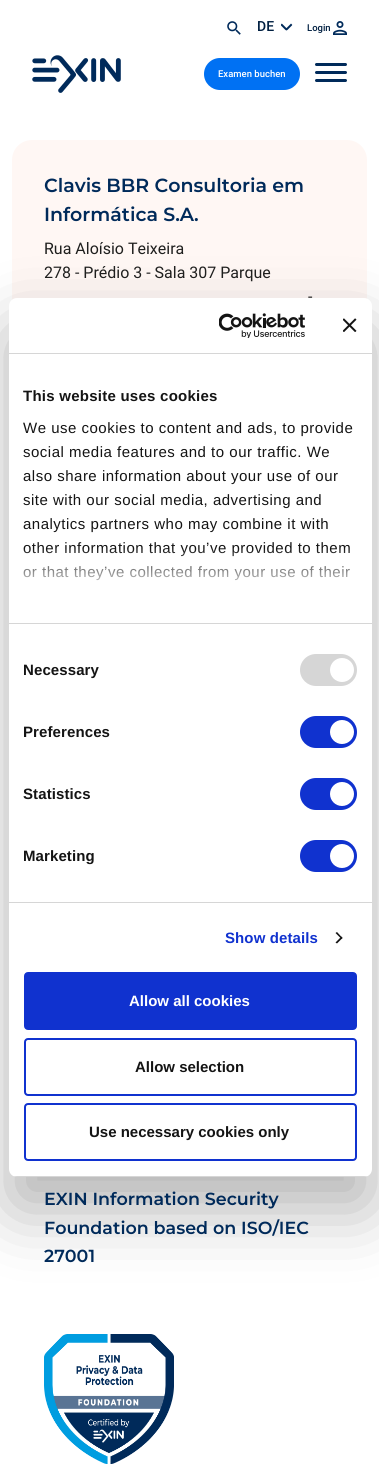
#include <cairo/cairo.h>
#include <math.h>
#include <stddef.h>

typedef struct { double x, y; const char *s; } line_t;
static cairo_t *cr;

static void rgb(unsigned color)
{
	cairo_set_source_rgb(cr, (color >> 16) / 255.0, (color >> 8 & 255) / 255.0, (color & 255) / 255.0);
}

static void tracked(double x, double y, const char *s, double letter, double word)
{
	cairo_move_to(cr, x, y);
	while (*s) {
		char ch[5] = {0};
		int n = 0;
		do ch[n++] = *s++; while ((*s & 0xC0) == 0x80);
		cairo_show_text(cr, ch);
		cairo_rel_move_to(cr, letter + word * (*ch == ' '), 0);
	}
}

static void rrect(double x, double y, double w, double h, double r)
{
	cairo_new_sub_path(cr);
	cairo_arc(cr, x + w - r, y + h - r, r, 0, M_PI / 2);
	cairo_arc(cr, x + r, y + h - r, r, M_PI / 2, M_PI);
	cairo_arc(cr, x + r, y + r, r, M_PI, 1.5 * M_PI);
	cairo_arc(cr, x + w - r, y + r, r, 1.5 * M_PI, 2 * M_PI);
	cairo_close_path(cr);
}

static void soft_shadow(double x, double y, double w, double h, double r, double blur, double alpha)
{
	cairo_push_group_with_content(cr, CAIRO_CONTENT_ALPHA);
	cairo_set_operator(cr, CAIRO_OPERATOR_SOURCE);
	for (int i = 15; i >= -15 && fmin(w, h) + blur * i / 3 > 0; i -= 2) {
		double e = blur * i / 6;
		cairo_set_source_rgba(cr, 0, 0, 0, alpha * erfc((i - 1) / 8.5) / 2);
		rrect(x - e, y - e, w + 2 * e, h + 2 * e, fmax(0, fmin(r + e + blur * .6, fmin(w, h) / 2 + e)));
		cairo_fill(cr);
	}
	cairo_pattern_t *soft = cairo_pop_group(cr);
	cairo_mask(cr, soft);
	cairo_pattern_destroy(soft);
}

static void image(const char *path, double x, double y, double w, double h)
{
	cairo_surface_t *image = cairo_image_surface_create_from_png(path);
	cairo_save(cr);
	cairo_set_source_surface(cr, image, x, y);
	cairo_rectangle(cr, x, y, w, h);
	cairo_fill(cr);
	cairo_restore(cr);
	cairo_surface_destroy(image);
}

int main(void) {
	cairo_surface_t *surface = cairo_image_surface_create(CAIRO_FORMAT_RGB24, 379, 1475);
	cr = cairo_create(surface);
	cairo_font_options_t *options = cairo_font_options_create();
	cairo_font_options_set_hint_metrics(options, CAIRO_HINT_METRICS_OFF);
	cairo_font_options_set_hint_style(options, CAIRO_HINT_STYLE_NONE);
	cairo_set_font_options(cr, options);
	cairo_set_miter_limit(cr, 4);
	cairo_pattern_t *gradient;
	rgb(0xffffff);
	cairo_paint(cr);
	image("img/1.png", 227, 21, 14, 14);
	image("img/2.png", 281, 23, 12, 8);
	image("img/3.png", 333, 21, 14, 14);
	image("img/4.png", 32, 55, 89, 38);
	rgb(0x0071f3);
	rrect(204, 58, 96, 32, 16);
	cairo_fill(cr);
	rgb(0x002a5a);
	rrect(315, 63, 32, 3, 1.5);
	cairo_fill(cr);
	rrect(315, 71, 32, 3, 1.5);
	cairo_fill(cr);
	rrect(315, 79, 32, 3, 1.5);
	cairo_fill(cr);
	rgb(0xfff7f4);
	rrect(12, 140, 355, 727, 20);
	cairo_fill(cr);
	image("img/5.png", 44, 1334, 130, 130);
	rgb(0x000000);
	soft_shadow(9, 330, 363, 879, 8, 34, 0.3);
	rgb(0xffffff);
	rrect(9, 298, 363, 879, 8);
	cairo_fill(cr);
	rgb(0xd6d6d6);
	cairo_rectangle(cr, 9, 353, 363, 1);
	cairo_fill(cr);
	image("img/6.png", 219, 313, 86, 25);
	image("img/7.png", 343, 318, 14, 14);
	cairo_rectangle(cr, 9, 623, 363, 1);
	cairo_fill(cr);
	cairo_rectangle(cr, 9, 902, 363, 1);
	cairo_fill(cr);
	rrect(300, 654, 57, 32, 16);
	cairo_fill(cr);
	rgb(0xffffff);
	cairo_arc(cr, 342, 670, 12, 0, 2 * M_PI);
	cairo_fill(cr);
	rgb(0x1032cf);
	rrect(300, 716, 57, 32, 16);
	cairo_fill(cr);
	rgb(0xffffff);
	cairo_arc(cr, 342, 732, 12, 0, 2 * M_PI);
	cairo_fill(cr);
	rgb(0x1032cf);
	rrect(300, 778, 57, 32, 16);
	cairo_fill(cr);
	rgb(0xffffff);
	cairo_arc(cr, 342, 794, 12, 0, 2 * M_PI);
	cairo_fill(cr);
	rgb(0x1032cf);
	rrect(300, 840, 57, 32, 16);
	cairo_fill(cr);
	rgb(0xffffff);
	cairo_arc(cr, 342, 856, 12, 0, 2 * M_PI);
	cairo_fill(cr);
	rgb(0x141414);
	cairo_new_path(cr);
	cairo_move_to(cr, 337, 932);
	cairo_line_to(cr, 342.5, 938);
	cairo_line_to(cr, 341.5, 939);
	cairo_line_to(cr, 335.5, 933);
	cairo_close_path(cr);
	cairo_fill(cr);
	cairo_new_path(cr);
	cairo_move_to(cr, 341.5, 936.5);
	cairo_line_to(cr, 342.5, 938);
	cairo_line_to(cr, 337, 943.5);
	cairo_line_to(cr, 335.5, 942.5);
	cairo_close_path(cr);
	cairo_fill(cr);
	cairo_save(cr);
	rrect(9, 298, 363, 879, 8);
	cairo_clip(cr);
	rgb(0xd6d6d6);
	cairo_rectangle(cr, 9, 1176, 363, 1);
	cairo_fill(cr);
	cairo_restore(cr);
	rgb(0x1032cf);
	rrect(25, 973, 331, 56, 3);
	cairo_fill_preserve(cr);
	cairo_stroke(cr);
	rrect(25, 1039, 331, 56, 3);
	cairo_stroke(cr);
	rrect(25, 1104, 331, 56, 3);
	cairo_stroke(cr);
	cairo_select_font_face(cr, "Roboto Medium", CAIRO_FONT_SLANT_NORMAL, CAIRO_FONT_WEIGHT_NORMAL);
	cairo_set_font_size(cr, 14);
	rgb(0x001f41);
	cairo_move_to(cr, 257, 31);
	cairo_show_text(cr, "DE");
	cairo_set_font_size(cr, 9.5);
	cairo_move_to(cr, 307, 31);
	cairo_show_text(cr, "Login");
	rgb(0xffffff);
	cairo_move_to(cr, 218, 77);
	cairo_show_text(cr, "Examen buchen");
	cairo_select_font_face(cr, "Montserrat SemiBold", CAIRO_FONT_SLANT_NORMAL, CAIRO_FONT_WEIGHT_NORMAL);
	cairo_set_font_size(cr, 19);
	rgb(0x002a5a);
	cairo_move_to(cr, 44, 192);
	cairo_show_text(cr, "Clavis BBR Consultoria em");
	cairo_move_to(cr, 44, 221);
	cairo_show_text(cr, "Informática S.A.");
	cairo_select_font_face(cr, "Roboto", CAIRO_FONT_SLANT_NORMAL, CAIRO_FONT_WEIGHT_NORMAL);
	cairo_set_font_size(cr, 16);
	rgb(0x1f1f1e);
	{
		static const line_t items[] = {
			{44, 254, "Rua Aloísio Teixeira"},
			{44, 278, "278 - Prédio 3 - Sala 307 Parque"},
			{308, 302, "-"},
		};
		for (size_t i = 0; i < sizeof items / sizeof *items; i++) {
			cairo_move_to(cr, items[i].x, items[i].y);
			cairo_show_text(cr, items[i].s);
		}
	}
	cairo_select_font_face(cr, "Montserrat SemiBold", CAIRO_FONT_SLANT_NORMAL, CAIRO_FONT_WEIGHT_NORMAL);
	cairo_set_font_size(cr, 17.5);
	rgb(0x002a5a);
	{
		static const line_t items[] = {
			{44, 1205, "EXIN Information Security"},
			{44, 1234, "Foundation based on ISO/IEC"},
			{44, 1262, "27001"},
		};
		for (size_t i = 0; i < sizeof items / sizeof *items; i++) {
			cairo_move_to(cr, items[i].x, items[i].y);
			cairo_show_text(cr, items[i].s);
		}
	}
	cairo_select_font_face(cr, "Liberation Sans", CAIRO_FONT_SLANT_NORMAL, CAIRO_FONT_WEIGHT_BOLD);
	cairo_set_font_size(cr, 15);
	rgb(0x141414);
	tracked(23, 401, "This website uses cookies", 0.25, 0);
	cairo_select_font_face(cr, "Liberation Sans", CAIRO_FONT_SLANT_NORMAL, CAIRO_FONT_WEIGHT_NORMAL);
	{
		static const line_t items[] = {
			{23, 433, "We use cookies to content and ads, to provide"},
			{23, 457, "social media features and to our traffic. We"},
			{23, 481, "also share information about your use of our"},
			{23, 505, "site with our social media, advertising and"},
			{23, 529, "analytics partners who may combine it with"},
			{23, 553, "other information that you’ve provided to them"},
			{23, 577, "or that they’ve collected from your use of their"},
		};
		for (size_t i = 0; i < sizeof items / sizeof *items; i++) {
			tracked(items[i].x, items[i].y, items[i].s, 0.5, 0);
		}
	}
	gradient = cairo_pattern_create_linear(184, 623, 184, 548);
	cairo_pattern_add_color_stop_rgba(gradient, 0, 1, 1, 1, 1);
	cairo_pattern_add_color_stop_rgba(gradient, 0.5, 1, 1, 1, 0.8);
	cairo_pattern_add_color_stop_rgba(gradient, 1, 1, 1, 1, 0);
	cairo_set_source(cr, gradient);
	cairo_pattern_destroy(gradient);
	cairo_rectangle(cr, 23, 549, 327, 32);
	cairo_fill(cr);
	cairo_select_font_face(cr, "Liberation Sans", CAIRO_FONT_SLANT_NORMAL, CAIRO_FONT_WEIGHT_BOLD);
	rgb(0x141414);
	{
		static const line_t items[] = {
			{23, 675, "Necessary"},
			{23, 737, "Preferences"},
			{23, 799, "Statistics"},
			{23, 861, "Marketing"},
		};
		for (size_t i = 0; i < sizeof items / sizeof *items; i++) {
			tracked(items[i].x, items[i].y, items[i].s, 0.1, 0);
		}
	}
	rgb(0x1032cf);
	tracked(225, 943, "Show details", 0.1, 0);
	rgb(0xffffff);
	cairo_move_to(cr, 129, 1006);
	cairo_show_text(cr, "Allow all cookies");
	rgb(0x141414);
	cairo_move_to(cr, 135, 1072);
	cairo_show_text(cr, "Allow selection");
	cairo_move_to(cr, 89, 1137);
	cairo_show_text(cr, "Use necessary cookies only");
	cairo_surface_write_to_png(surface, "page.png");
	cairo_font_options_destroy(options);
	cairo_destroy(cr);
	cairo_surface_destroy(surface);
	return 0;
}
